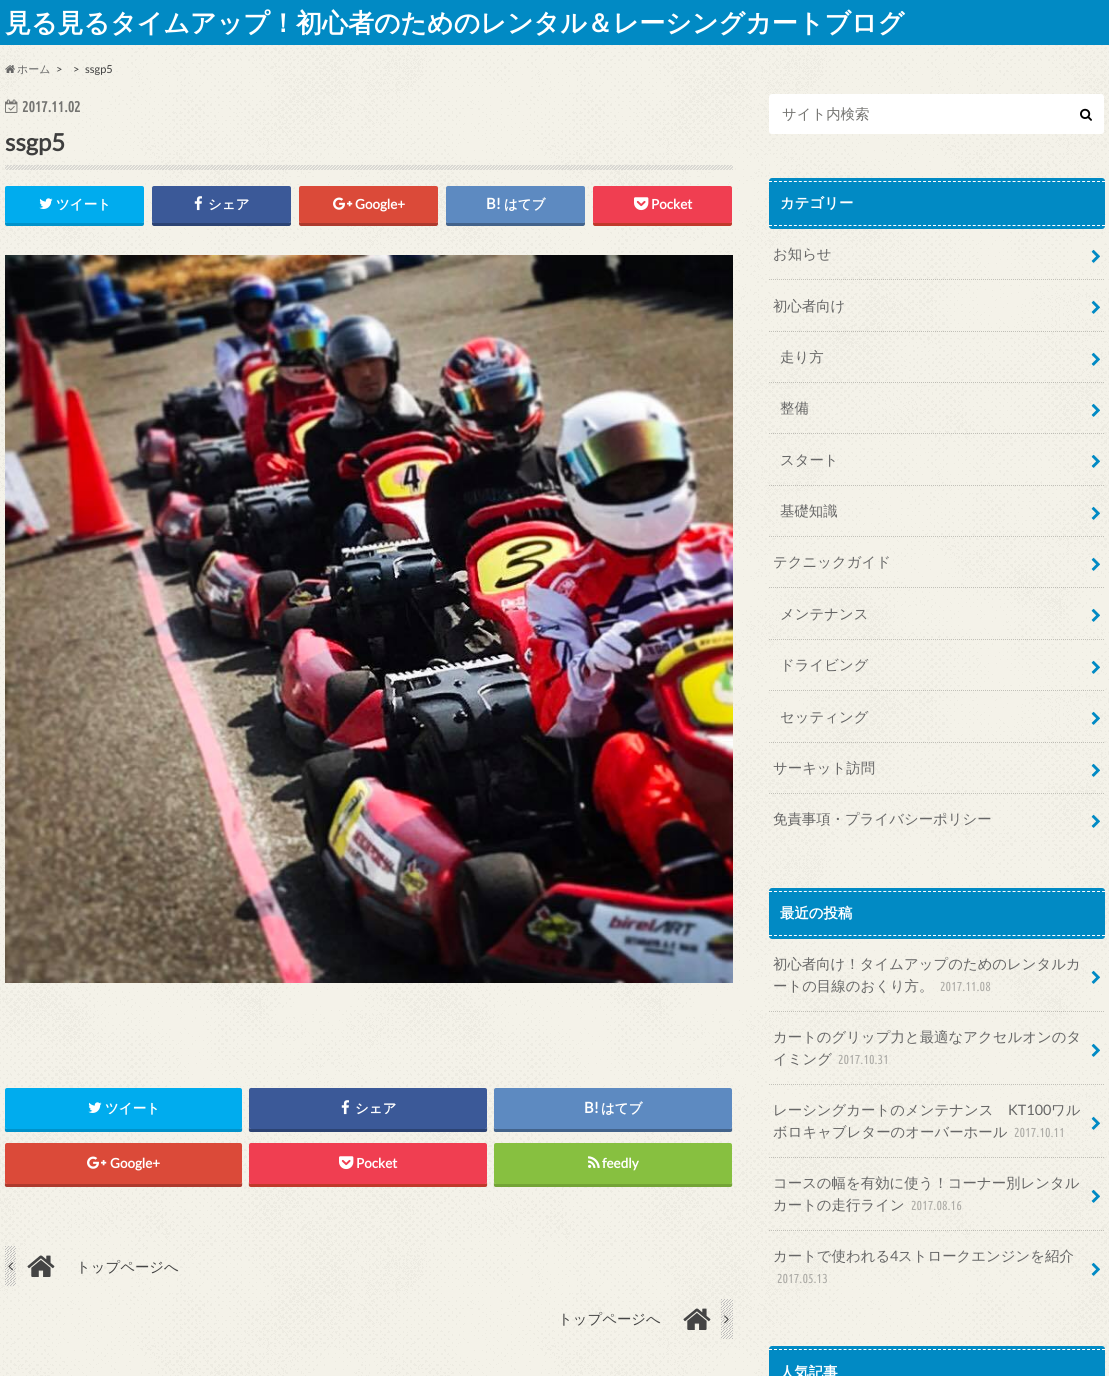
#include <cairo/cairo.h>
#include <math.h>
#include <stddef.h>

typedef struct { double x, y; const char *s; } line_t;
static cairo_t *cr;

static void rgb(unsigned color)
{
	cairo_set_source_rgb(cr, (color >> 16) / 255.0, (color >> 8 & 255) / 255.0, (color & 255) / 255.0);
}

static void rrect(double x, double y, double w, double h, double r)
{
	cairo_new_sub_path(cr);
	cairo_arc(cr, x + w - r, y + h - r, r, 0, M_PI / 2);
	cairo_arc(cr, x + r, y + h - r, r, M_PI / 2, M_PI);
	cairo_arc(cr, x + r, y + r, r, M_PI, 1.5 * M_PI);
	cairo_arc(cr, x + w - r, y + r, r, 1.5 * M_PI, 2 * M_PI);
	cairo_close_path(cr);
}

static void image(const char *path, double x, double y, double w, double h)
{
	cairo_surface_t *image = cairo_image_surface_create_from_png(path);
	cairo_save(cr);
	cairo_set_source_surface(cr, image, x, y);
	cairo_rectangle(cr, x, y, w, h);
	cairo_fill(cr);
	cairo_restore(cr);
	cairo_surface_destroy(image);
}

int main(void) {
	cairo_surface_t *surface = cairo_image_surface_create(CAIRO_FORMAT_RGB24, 1109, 1376);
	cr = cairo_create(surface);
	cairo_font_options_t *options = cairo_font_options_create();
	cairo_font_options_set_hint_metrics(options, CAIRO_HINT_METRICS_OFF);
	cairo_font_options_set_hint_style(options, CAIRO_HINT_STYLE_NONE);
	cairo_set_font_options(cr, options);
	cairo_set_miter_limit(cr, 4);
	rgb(0xffffff);
	cairo_paint(cr);
	image("img/1.png", 0, 45, 1109, 1331);
	rgb(0x018ac4);
	cairo_rectangle(cr, 0, 0, 1109, 45);
	cairo_fill(cr);
	image("img/2.png", 5, 65, 10, 8);
	image("img/3.png", 5, 99, 13, 14);
	image("img/4.png", 5, 165, 728, 5);
	rgb(0x0092ca);
	cairo_new_path(cr);
	cairo_move_to(cr, 5, 221);
	cairo_line_to(cr, 5, 224);
	cairo_curve_to(cr, 5, 225, 6, 226, 7, 226);
	cairo_line_to(cr, 142, 226);
	cairo_curve_to(cr, 143, 226, 144, 225, 144, 224);
	cairo_line_to(cr, 144, 221);
	cairo_curve_to(cr, 144, 222, 143, 223, 142, 223);
	cairo_line_to(cr, 7, 223);
	cairo_line_to(cr, 5, 222);
	cairo_close_path(cr);
	cairo_fill(cr);
	rgb(0x00acee);
	rrect(5, 186, 139, 37, 2);
	cairo_fill(cr);
	image("img/5.png", 39, 198, 14, 11);
	rgb(0x2c4373);
	cairo_new_path(cr);
	cairo_move_to(cr, 152, 221);
	cairo_line_to(cr, 152, 224);
	cairo_curve_to(cr, 152, 225, 153, 226, 154, 226);
	cairo_line_to(cr, 289, 226);
	cairo_curve_to(cr, 290, 226, 291, 225, 291, 224);
	cairo_line_to(cr, 291, 221);
	cairo_curve_to(cr, 291, 222, 290, 223, 289, 223);
	cairo_line_to(cr, 154, 223);
	cairo_line_to(cr, 152, 222);
	cairo_close_path(cr);
	cairo_fill(cr);
	rgb(0x3b5998);
	rrect(152, 186, 139, 37, 2);
	cairo_fill(cr);
	image("img/6.png", 194, 196, 8, 15);
	rgb(0xad3a2d);
	cairo_new_path(cr);
	cairo_move_to(cr, 299, 221);
	cairo_line_to(cr, 299, 224);
	cairo_curve_to(cr, 299, 225, 300, 226, 301, 226);
	cairo_line_to(cr, 436, 226);
	cairo_curve_to(cr, 437, 226, 438, 225, 438, 224);
	cairo_line_to(cr, 438, 221);
	cairo_curve_to(cr, 438, 222, 437, 223, 436, 223);
	cairo_line_to(cr, 301, 223);
	cairo_line_to(cr, 299, 222);
	cairo_close_path(cr);
	cairo_fill(cr);
	rgb(0xdb4a39);
	rrect(299, 186, 139, 37, 2);
	cairo_fill(cr);
	image("img/7.png", 333, 197, 20, 13);
	rgb(0x43638b);
	cairo_new_path(cr);
	cairo_move_to(cr, 446, 221);
	cairo_line_to(cr, 446, 224);
	cairo_curve_to(cr, 446, 225, 447, 226, 448, 226);
	cairo_line_to(cr, 583, 226);
	cairo_curve_to(cr, 584, 226, 585, 225, 585, 224);
	cairo_line_to(cr, 585, 221);
	cairo_curve_to(cr, 585, 222, 584, 223, 583, 223);
	cairo_line_to(cr, 448, 223);
	cairo_line_to(cr, 446, 222);
	cairo_close_path(cr);
	cairo_fill(cr);
	rgb(0x5d8ac1);
	rrect(446, 186, 139, 37, 2);
	cairo_fill(cr);
	rgb(0xc0392b);
	cairo_new_path(cr);
	cairo_move_to(cr, 593, 221);
	cairo_line_to(cr, 593, 224);
	cairo_curve_to(cr, 593, 225, 594, 226, 595, 226);
	cairo_line_to(cr, 730, 226);
	cairo_curve_to(cr, 731, 226, 732, 225, 732, 224);
	cairo_line_to(cr, 732, 221);
	cairo_curve_to(cr, 732, 222, 731, 223, 730, 223);
	cairo_line_to(cr, 595, 223);
	cairo_line_to(cr, 593, 222);
	cairo_close_path(cr);
	cairo_fill(cr);
	rgb(0xf03e51);
	rrect(593, 186, 139, 37, 2);
	cairo_fill(cr);
	image("img/8.png", 634, 197, 15, 14);
	image("img/9.png", 5, 255, 728, 728);
	rgb(0x0092ca);
	cairo_new_path(cr);
	cairo_move_to(cr, 5, 1127);
	cairo_curve_to(cr, 5, 1129, 4, 1132, 7, 1132);
	cairo_line_to(cr, 240, 1132);
	cairo_curve_to(cr, 243, 1132, 242, 1129, 242, 1127);
	cairo_curve_to(cr, 242, 1128, 241, 1129, 240, 1129);
	cairo_line_to(cr, 7, 1129);
	cairo_curve_to(cr, 6, 1129, 5, 1128, 5, 1127);
	cairo_close_path(cr);
	cairo_fill(cr);
	rgb(0x00acee);
	rrect(5, 1088, 237, 41, 2);
	cairo_fill(cr);
	image("img/5.png", 88, 1102, 14, 11);
	rgb(0x2c4373);
	cairo_new_path(cr);
	cairo_move_to(cr, 249, 1127);
	cairo_curve_to(cr, 249, 1129, 248, 1132, 251, 1132);
	cairo_line_to(cr, 485, 1132);
	cairo_curve_to(cr, 488, 1132, 487, 1129, 487, 1127);
	cairo_curve_to(cr, 487, 1128, 486, 1129, 485, 1129);
	cairo_line_to(cr, 251, 1129);
	cairo_curve_to(cr, 250, 1129, 249, 1128, 249, 1127);
	cairo_close_path(cr);
	cairo_fill(cr);
	rgb(0x3b5998);
	rrect(249, 1088, 238, 41, 2);
	cairo_fill(cr);
	image("img/6.png", 341, 1100, 8, 15);
	rgb(0x43638b);
	cairo_new_path(cr);
	cairo_move_to(cr, 494, 1127);
	cairo_curve_to(cr, 494, 1129, 493, 1132, 496, 1132);
	cairo_line_to(cr, 730, 1132);
	cairo_curve_to(cr, 733, 1132, 732, 1129, 732, 1127);
	cairo_curve_to(cr, 732, 1128, 731, 1129, 730, 1129);
	cairo_line_to(cr, 496, 1129);
	cairo_curve_to(cr, 495, 1129, 494, 1128, 494, 1127);
	cairo_close_path(cr);
	cairo_fill(cr);
	rgb(0x5d8ac1);
	rrect(494, 1088, 238, 41, 2);
	cairo_fill(cr);
	rgb(0xad3a2d);
	cairo_new_path(cr);
	cairo_move_to(cr, 5, 1182);
	cairo_curve_to(cr, 5, 1184, 4, 1187, 7, 1187);
	cairo_line_to(cr, 240, 1187);
	cairo_curve_to(cr, 243, 1187, 242, 1184, 242, 1182);
	cairo_curve_to(cr, 242, 1183, 241, 1184, 240, 1184);
	cairo_line_to(cr, 7, 1184);
	cairo_curve_to(cr, 6, 1184, 5, 1183, 5, 1182);
	cairo_close_path(cr);
	cairo_fill(cr);
	rgb(0xdb4a39);
	rrect(5, 1143, 237, 41, 2);
	cairo_fill(cr);
	image("img/7.png", 87, 1156, 20, 13);
	rgb(0xc0392b);
	cairo_new_path(cr);
	cairo_move_to(cr, 249, 1182);
	cairo_curve_to(cr, 249, 1184, 248, 1187, 251, 1187);
	cairo_line_to(cr, 485, 1187);
	cairo_curve_to(cr, 488, 1187, 487, 1184, 487, 1182);
	cairo_curve_to(cr, 487, 1183, 486, 1184, 485, 1184);
	cairo_line_to(cr, 251, 1184);
	cairo_curve_to(cr, 250, 1184, 249, 1183, 249, 1182);
	cairo_close_path(cr);
	cairo_fill(cr);
	rgb(0xf03e51);
	rrect(249, 1143, 238, 41, 2);
	cairo_fill(cr);
	image("img/8.png", 339, 1156, 15, 14);
	rgb(0x74a436);
	cairo_new_path(cr);
	cairo_move_to(cr, 494, 1182);
	cairo_curve_to(cr, 494, 1184, 493, 1187, 496, 1187);
	cairo_line_to(cr, 730, 1187);
	cairo_curve_to(cr, 733, 1187, 732, 1184, 732, 1182);
	cairo_curve_to(cr, 732, 1183, 731, 1184, 730, 1184);
	cairo_line_to(cr, 496, 1184);
	cairo_curve_to(cr, 495, 1184, 494, 1183, 494, 1182);
	cairo_close_path(cr);
	cairo_fill(cr);
	rgb(0x87c040);
	rrect(494, 1143, 238, 41, 2);
	cairo_fill(cr);
	image("img/10.png", 588, 1156, 12, 12);
	image("img/11.png", 5, 1246, 11, 40);
	image("img/12.png", 8, 1262, 5, 9);
	image("img/13.png", 27, 1255, 28, 22);
	image("img/14.png", 683, 1308, 28, 22);
	image("img/15.png", 721, 1299, 12, 40);
	image("img/16.png", 724, 1315, 5, 9);
	rgb(0xffffff);
	rrect(769, 94, 335, 40, 3);
	cairo_fill(cr);
	image("img/17.png", 1080, 108, 12, 13);
	rgb(0x018ac4);
	rrect(769, 178, 336, 51, 3);
	cairo_fill(cr);
	cairo_new_path(cr);
	cairo_move_to(cr, 769, 181.5);
	cairo_line_to(cr, 1105, 181.5);
	rgb(0xffffff);
	cairo_set_line_width(cr, 1);
	cairo_set_dash(cr, (double[]){3, 1.97}, 2, 0);
	cairo_stroke(cr);
	cairo_new_path(cr);
	cairo_move_to(cr, 769, 225.5);
	cairo_line_to(cr, 1105, 225.5);
	cairo_stroke(cr);
	cairo_new_path(cr);
	cairo_move_to(cr, 769, 279.5);
	cairo_line_to(cr, 1105, 279.5);
	cairo_set_source_rgba(cr, 0, 0, 0, 0.2);
	cairo_set_dash(cr, (double[]){1, 1}, 2, 0);
	cairo_stroke(cr);
	image("img/18.png", 1091, 249, 9, 14);
	cairo_new_path(cr);
	cairo_move_to(cr, 769, 536.5);
	cairo_line_to(cr, 1105, 536.5);
	cairo_stroke(cr);
	image("img/19.png", 1091, 300, 9, 14);
	cairo_new_path(cr);
	cairo_move_to(cr, 769, 331.5);
	cairo_line_to(cr, 1105, 331.5);
	cairo_stroke(cr);
	cairo_new_path(cr);
	cairo_move_to(cr, 769, 382.5);
	cairo_line_to(cr, 1105, 382.5);
	cairo_stroke(cr);
	image("img/20.png", 1091, 352, 9, 14);
	cairo_new_path(cr);
	cairo_move_to(cr, 769, 433.5);
	cairo_line_to(cr, 1105, 433.5);
	cairo_stroke(cr);
	image("img/21.png", 1091, 403, 9, 14);
	cairo_new_path(cr);
	cairo_move_to(cr, 769, 485.5);
	cairo_line_to(cr, 1105, 485.5);
	cairo_stroke(cr);
	image("img/22.png", 1091, 454, 9, 14);
	image("img/23.png", 1091, 506, 9, 14);
	cairo_new_path(cr);
	cairo_move_to(cr, 769, 742.5);
	cairo_line_to(cr, 1105, 742.5);
	cairo_stroke(cr);
	image("img/24.png", 1091, 557, 9, 14);
	cairo_new_path(cr);
	cairo_move_to(cr, 769, 587.5);
	cairo_line_to(cr, 1105, 587.5);
	cairo_stroke(cr);
	cairo_new_path(cr);
	cairo_move_to(cr, 769, 639.5);
	cairo_line_to(cr, 1105, 639.5);
	cairo_stroke(cr);
	image("img/25.png", 1091, 608, 9, 14);
	cairo_new_path(cr);
	cairo_move_to(cr, 769, 690.5);
	cairo_line_to(cr, 1105, 690.5);
	cairo_stroke(cr);
	image("img/26.png", 1091, 660, 9, 14);
	image("img/27.png", 1091, 711, 9, 14);
	cairo_new_path(cr);
	cairo_move_to(cr, 769, 793.5);
	cairo_line_to(cr, 1105, 793.5);
	cairo_stroke(cr);
	image("img/28.png", 1091, 763, 9, 14);
	image("img/29.png", 1091, 814, 9, 14);
	rgb(0x018ac4);
	rrect(769, 888, 336, 51, 3);
	cairo_fill(cr);
	cairo_new_path(cr);
	cairo_move_to(cr, 769, 891.5);
	cairo_line_to(cr, 1105, 891.5);
	rgb(0xffffff);
	cairo_set_dash(cr, (double[]){3, 1.97}, 2, 0);
	cairo_stroke(cr);
	cairo_new_path(cr);
	cairo_move_to(cr, 769, 935.5);
	cairo_line_to(cr, 1105, 935.5);
	cairo_stroke(cr);
	cairo_new_path(cr);
	cairo_move_to(cr, 769, 1011.5);
	cairo_line_to(cr, 1105, 1011.5);
	cairo_set_source_rgba(cr, 0, 0, 0, 0.2);
	cairo_set_dash(cr, (double[]){1, 1}, 2, 0);
	cairo_stroke(cr);
	image("img/30.png", 1091, 970, 9, 14);
	cairo_new_path(cr);
	cairo_move_to(cr, 769, 1084.5);
	cairo_line_to(cr, 1105, 1084.5);
	cairo_stroke(cr);
	image("img/31.png", 1091, 1043, 9, 14);
	cairo_new_path(cr);
	cairo_move_to(cr, 769, 1157.5);
	cairo_line_to(cr, 1105, 1157.5);
	cairo_stroke(cr);
	image("img/32.png", 1091, 1116, 9, 14);
	cairo_new_path(cr);
	cairo_move_to(cr, 769, 1230.5);
	cairo_line_to(cr, 1105, 1230.5);
	cairo_stroke(cr);
	image("img/33.png", 1091, 1189, 9, 14);
	image("img/34.png", 1091, 1262, 9, 14);
	rgb(0x018ac4);
	rrect(769, 1346, 336, 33, 3);
	cairo_fill(cr);
	cairo_new_path(cr);
	cairo_move_to(cr, 769, 1349.5);
	cairo_line_to(cr, 1105, 1349.5);
	rgb(0xffffff);
	cairo_set_dash(cr, (double[]){3, 1.97}, 2, 0);
	cairo_stroke(cr);
	cairo_select_font_face(cr, "WenQuanYi Zen Hei", CAIRO_FONT_SLANT_NORMAL, CAIRO_FONT_WEIGHT_BOLD);
	cairo_set_font_size(cr, 26);
	cairo_move_to(cr, 5, 32);
	cairo_show_text(cr, "見る見るタイムアップ！初心者のためのレンタル＆レーシングカートブログ");
	cairo_select_font_face(cr, "WenQuanYi Zen Hei Medium", CAIRO_FONT_SLANT_NORMAL, CAIRO_FONT_WEIGHT_NORMAL);
	cairo_set_font_size(cr, 11);
	rgb(0x666666);
	cairo_move_to(cr, 17, 73);
	cairo_show_text(cr, "ホーム");
	cairo_select_font_face(cr, "Lato", CAIRO_FONT_SLANT_NORMAL, CAIRO_FONT_WEIGHT_NORMAL);
	rgb(0x3e3e3e);
	{
		static const line_t items[] = {
			{56, 73, ">"},
			{73, 73, ">"},
			{85, 73, "ssgp5"},
		};
		for (size_t i = 0; i < sizeof items / sizeof *items; i++) {
			cairo_move_to(cr, items[i].x, items[i].y);
			cairo_show_text(cr, items[i].s);
		}
	}
	cairo_select_font_face(cr, "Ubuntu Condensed", CAIRO_FONT_SLANT_NORMAL, CAIRO_FONT_WEIGHT_BOLD);
	cairo_set_font_size(cr, 15);
	rgb(0x747471);
	cairo_move_to(cr, 22, 112);
	cairo_show_text(cr, "2017.11.02");
	cairo_select_font_face(cr, "Lato", CAIRO_FONT_SLANT_NORMAL, CAIRO_FONT_WEIGHT_BOLD);
	cairo_set_font_size(cr, 24);
	rgb(0x3e3e3e);
	cairo_move_to(cr, 5, 151);
	cairo_show_text(cr, "ssgp5");
	cairo_select_font_face(cr, "WenQuanYi Zen Hei", CAIRO_FONT_SLANT_NORMAL, CAIRO_FONT_WEIGHT_BOLD);
	cairo_set_font_size(cr, 13.5);
	rgb(0xffffff);
	cairo_move_to(cr, 56, 209);
	cairo_show_text(cr, "ツイート");
	cairo_move_to(cr, 208, 209);
	cairo_show_text(cr, "シェア");
	cairo_select_font_face(cr, "Lato", CAIRO_FONT_SLANT_NORMAL, CAIRO_FONT_WEIGHT_BOLD);
	cairo_move_to(cr, 355, 209);
	cairo_show_text(cr, "Google+");
	cairo_set_font_size(cr, 15);
	cairo_move_to(cr, 486, 209);
	cairo_show_text(cr, "B!");
	cairo_select_font_face(cr, "WenQuanYi Zen Hei", CAIRO_FONT_SLANT_NORMAL, CAIRO_FONT_WEIGHT_BOLD);
	cairo_set_font_size(cr, 13.5);
	cairo_move_to(cr, 504, 209);
	cairo_show_text(cr, "はてブ");
	cairo_select_font_face(cr, "Lato", CAIRO_FONT_SLANT_NORMAL, CAIRO_FONT_WEIGHT_BOLD);
	cairo_move_to(cr, 651, 209);
	cairo_show_text(cr, "Pocket");
	cairo_select_font_face(cr, "WenQuanYi Zen Hei", CAIRO_FONT_SLANT_NORMAL, CAIRO_FONT_WEIGHT_BOLD);
	cairo_move_to(cr, 105, 1113);
	cairo_show_text(cr, "ツイート");
	cairo_move_to(cr, 355, 1113);
	cairo_show_text(cr, "シェア");
	cairo_select_font_face(cr, "Lato", CAIRO_FONT_SLANT_NORMAL, CAIRO_FONT_WEIGHT_BOLD);
	cairo_set_font_size(cr, 15);
	cairo_move_to(cr, 584, 1113);
	cairo_show_text(cr, "B!");
	cairo_select_font_face(cr, "WenQuanYi Zen Hei", CAIRO_FONT_SLANT_NORMAL, CAIRO_FONT_WEIGHT_BOLD);
	cairo_set_font_size(cr, 13.5);
	cairo_move_to(cr, 601, 1113);
	cairo_show_text(cr, "はてブ");
	cairo_select_font_face(cr, "Lato", CAIRO_FONT_SLANT_NORMAL, CAIRO_FONT_WEIGHT_BOLD);
	{
		static const line_t items[] = {
			{110, 1168, "Google+"},
			{356, 1168, "Pocket"},
			{602, 1168, "feedly"},
		};
		for (size_t i = 0; i < sizeof items / sizeof *items; i++) {
			cairo_move_to(cr, items[i].x, items[i].y);
			cairo_show_text(cr, items[i].s);
		}
	}
	cairo_select_font_face(cr, "WenQuanYi Zen Hei Medium", CAIRO_FONT_SLANT_NORMAL, CAIRO_FONT_WEIGHT_NORMAL);
	cairo_set_font_size(cr, 14.4);
	rgb(0x444444);
	cairo_move_to(cr, 76, 1272);
	cairo_show_text(cr, "トップページへ");
	cairo_move_to(cr, 558, 1324);
	cairo_show_text(cr, "トップページへ");
	rgb(0x747471);
	cairo_move_to(cr, 782, 119);
	cairo_show_text(cr, "サイト内検索");
	cairo_select_font_face(cr, "WenQuanYi Zen Hei", CAIRO_FONT_SLANT_NORMAL, CAIRO_FONT_WEIGHT_BOLD);
	rgb(0xffffff);
	cairo_move_to(cr, 780, 208);
	cairo_show_text(cr, "カテゴリー");
	cairo_select_font_face(cr, "WenQuanYi Zen Hei Medium", CAIRO_FONT_SLANT_NORMAL, CAIRO_FONT_WEIGHT_NORMAL);
	rgb(0x666666);
	{
		static const line_t items[] = {
			{773, 259, "お知らせ"},
			{773, 311, "初心者向け"},
			{780, 362, "走り方"},
			{780, 413, "整備"},
			{780, 465, "スタート"},
			{780, 516, "基礎知識"},
			{773, 567, "テクニックガイド"},
			{780, 619, "メンテナンス"},
			{780, 670, "ドライビング"},
			{780, 722, "セッティング"},
			{773, 773, "サーキット訪問"},
			{773, 824, "免責事項・プライバシーポリシー"},
		};
		for (size_t i = 0; i < sizeof items / sizeof *items; i++) {
			cairo_move_to(cr, items[i].x, items[i].y);
			cairo_show_text(cr, items[i].s);
		}
	}
	cairo_select_font_face(cr, "WenQuanYi Zen Hei", CAIRO_FONT_SLANT_NORMAL, CAIRO_FONT_WEIGHT_BOLD);
	rgb(0xffffff);
	cairo_move_to(cr, 780, 918);
	cairo_show_text(cr, "最近の投稿");
	cairo_select_font_face(cr, "WenQuanYi Zen Hei Medium", CAIRO_FONT_SLANT_NORMAL, CAIRO_FONT_WEIGHT_NORMAL);
	rgb(0x666666);
	cairo_move_to(cr, 773, 969);
	cairo_show_text(cr, "初心者向け！タイムアップのためのレンタルカ");
	cairo_move_to(cr, 773, 991);
	cairo_show_text(cr, "ートの目線のおくり方。");
	cairo_select_font_face(cr, "Ubuntu Condensed", CAIRO_FONT_SLANT_NORMAL, CAIRO_FONT_WEIGHT_NORMAL);
	cairo_set_font_size(cr, 13);
	rgb(0xadaca7);
	cairo_move_to(cr, 940, 991);
	cairo_show_text(cr, "2017.11.08");
	cairo_select_font_face(cr, "WenQuanYi Zen Hei Medium", CAIRO_FONT_SLANT_NORMAL, CAIRO_FONT_WEIGHT_NORMAL);
	cairo_set_font_size(cr, 14.4);
	rgb(0x666666);
	cairo_move_to(cr, 773, 1042);
	cairo_show_text(cr, "カートのグリップ力と最適なアクセルオンのタ");
	cairo_move_to(cr, 773, 1064);
	cairo_show_text(cr, "イミング");
	cairo_select_font_face(cr, "Ubuntu Condensed", CAIRO_FONT_SLANT_NORMAL, CAIRO_FONT_WEIGHT_NORMAL);
	cairo_set_font_size(cr, 13);
	rgb(0xadaca7);
	cairo_move_to(cr, 838, 1064);
	cairo_show_text(cr, "2017.10.31");
	cairo_select_font_face(cr, "WenQuanYi Zen Hei Medium", CAIRO_FONT_SLANT_NORMAL, CAIRO_FONT_WEIGHT_NORMAL);
	cairo_set_font_size(cr, 14.4);
	rgb(0x666666);
	cairo_move_to(cr, 773, 1115);
	cairo_show_text(cr, "レーシングカートのメンテナンス");
	cairo_select_font_face(cr, "Lato", CAIRO_FONT_SLANT_NORMAL, CAIRO_FONT_WEIGHT_NORMAL);
	cairo_move_to(cr, 1008, 1115);
	cairo_show_text(cr, "KT100");
	cairo_select_font_face(cr, "WenQuanYi Zen Hei Medium", CAIRO_FONT_SLANT_NORMAL, CAIRO_FONT_WEIGHT_NORMAL);
	cairo_move_to(cr, 1051, 1115);
	cairo_show_text(cr, "ワル");
	cairo_move_to(cr, 773, 1137);
	cairo_show_text(cr, "ボロキャブレターのオーバーホール");
	cairo_select_font_face(cr, "Ubuntu Condensed", CAIRO_FONT_SLANT_NORMAL, CAIRO_FONT_WEIGHT_NORMAL);
	cairo_set_font_size(cr, 13);
	rgb(0xadaca7);
	cairo_move_to(cr, 1014, 1137);
	cairo_show_text(cr, "2017.10.11");
	cairo_select_font_face(cr, "WenQuanYi Zen Hei Medium", CAIRO_FONT_SLANT_NORMAL, CAIRO_FONT_WEIGHT_NORMAL);
	cairo_set_font_size(cr, 14.4);
	rgb(0x666666);
	cairo_move_to(cr, 773, 1188);
	cairo_show_text(cr, "コースの幅を有効に使う！コーナー別レンタル");
	cairo_move_to(cr, 773, 1210);
	cairo_show_text(cr, "カートの走行ライン");
	cairo_select_font_face(cr, "Ubuntu Condensed", CAIRO_FONT_SLANT_NORMAL, CAIRO_FONT_WEIGHT_NORMAL);
	cairo_set_font_size(cr, 13);
	rgb(0xadaca7);
	cairo_move_to(cr, 911, 1210);
	cairo_show_text(cr, "2017.08.16");
	cairo_select_font_face(cr, "WenQuanYi Zen Hei Medium", CAIRO_FONT_SLANT_NORMAL, CAIRO_FONT_WEIGHT_NORMAL);
	cairo_set_font_size(cr, 14.4);
	rgb(0x666666);
	cairo_move_to(cr, 773, 1261);
	cairo_show_text(cr, "カートで使われる");
	cairo_select_font_face(cr, "Lato", CAIRO_FONT_SLANT_NORMAL, CAIRO_FONT_WEIGHT_NORMAL);
	cairo_move_to(cr, 890, 1261);
	cairo_show_text(cr, "4");
	cairo_select_font_face(cr, "WenQuanYi Zen Hei Medium", CAIRO_FONT_SLANT_NORMAL, CAIRO_FONT_WEIGHT_NORMAL);
	cairo_move_to(cr, 898, 1261);
	cairo_show_text(cr, "ストロークエンジンを紹介");
	cairo_select_font_face(cr, "Ubuntu Condensed", CAIRO_FONT_SLANT_NORMAL, CAIRO_FONT_WEIGHT_NORMAL);
	cairo_set_font_size(cr, 13);
	rgb(0xadaca7);
	cairo_move_to(cr, 777, 1283);
	cairo_show_text(cr, "2017.05.13");
	cairo_select_font_face(cr, "WenQuanYi Zen Hei", CAIRO_FONT_SLANT_NORMAL, CAIRO_FONT_WEIGHT_BOLD);
	cairo_set_font_size(cr, 14.4);
	rgb(0xffffff);
	cairo_move_to(cr, 780, 1377);
	cairo_show_text(cr, "人気記事");
	cairo_surface_write_to_png(surface, "page.png");
	cairo_font_options_destroy(options);
	cairo_destroy(cr);
	cairo_surface_destroy(surface);
	return 0;
}
